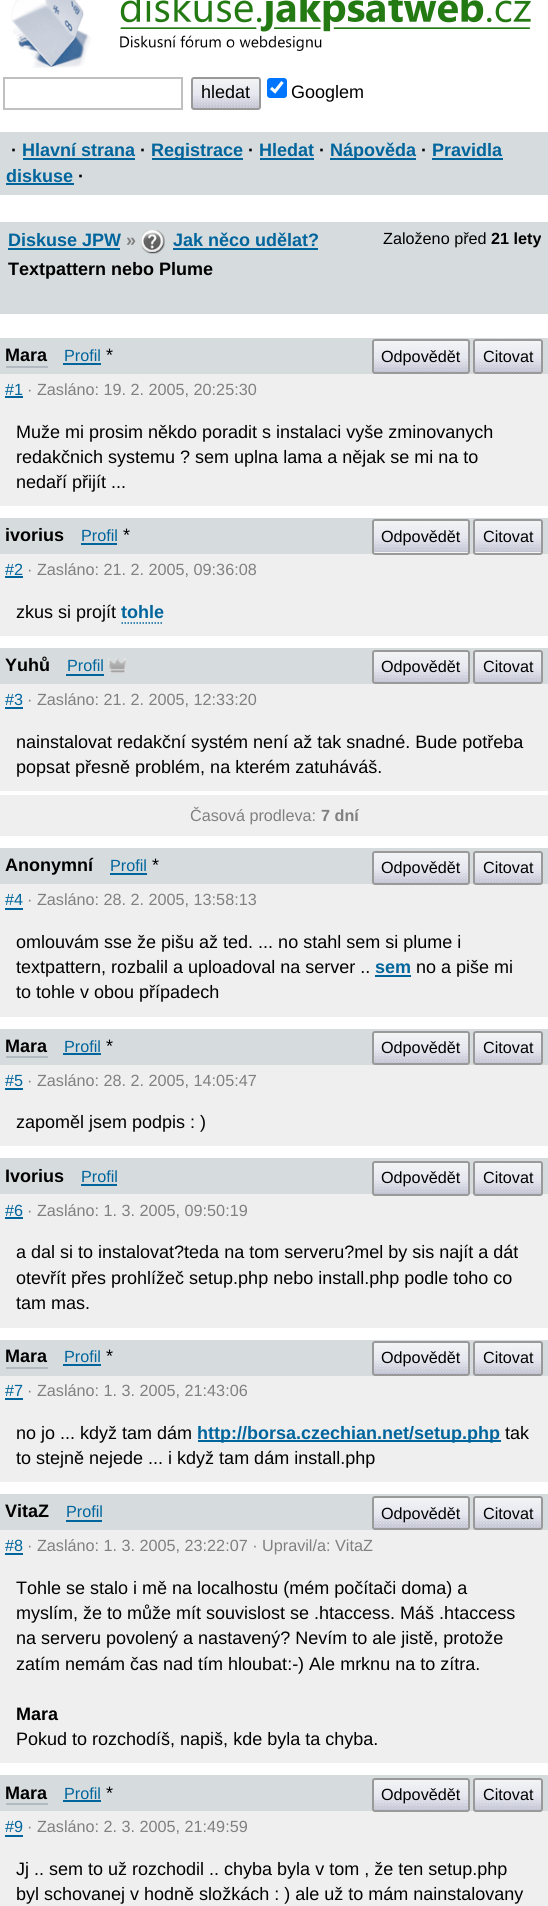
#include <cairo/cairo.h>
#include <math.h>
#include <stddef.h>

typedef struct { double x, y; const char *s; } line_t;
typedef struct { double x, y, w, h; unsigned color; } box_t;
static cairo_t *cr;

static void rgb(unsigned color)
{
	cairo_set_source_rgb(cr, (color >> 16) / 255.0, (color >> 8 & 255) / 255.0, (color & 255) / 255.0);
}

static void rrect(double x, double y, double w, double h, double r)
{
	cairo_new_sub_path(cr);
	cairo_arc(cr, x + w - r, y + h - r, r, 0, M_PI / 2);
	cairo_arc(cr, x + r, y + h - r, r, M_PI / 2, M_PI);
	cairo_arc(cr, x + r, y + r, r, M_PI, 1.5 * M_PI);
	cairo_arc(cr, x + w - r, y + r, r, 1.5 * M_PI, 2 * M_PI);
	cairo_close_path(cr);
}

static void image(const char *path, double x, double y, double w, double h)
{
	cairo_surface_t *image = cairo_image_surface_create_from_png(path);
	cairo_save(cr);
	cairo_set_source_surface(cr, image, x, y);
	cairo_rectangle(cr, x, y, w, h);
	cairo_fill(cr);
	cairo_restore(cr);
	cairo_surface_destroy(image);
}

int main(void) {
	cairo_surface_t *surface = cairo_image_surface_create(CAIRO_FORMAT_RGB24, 548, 1906);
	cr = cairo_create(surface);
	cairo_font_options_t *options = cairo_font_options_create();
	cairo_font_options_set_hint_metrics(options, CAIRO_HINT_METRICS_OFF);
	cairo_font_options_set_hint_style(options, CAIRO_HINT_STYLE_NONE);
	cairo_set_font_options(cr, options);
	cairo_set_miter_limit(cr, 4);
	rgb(0xffffff);
	cairo_paint(cr);
	image("img/1.png", 11, 0, 81, 68);
	rgb(0x237912);
	cairo_rectangle(cr, 120, 27, 411, 2);
	cairo_fill(cr);
	image("img/2.png", 120, 0, 411, 51);
	cairo_rectangle(cr, 4, 78, 178, 31);
	rgb(0xc0c0c0);
	cairo_stroke(cr);
	rgb(0xd6dbde);
	cairo_rectangle(cr, 193, 79, 66, 29);
	cairo_fill(cr);
	image("img/3.png", 193, 79, 66, 29);
	rrect(192, 78, 68, 31, 2);
	rgb(0x999999);
	cairo_stroke(cr);
	rgb(0x0075ff);
	rrect(267, 78, 20, 20, 3);
	cairo_fill(cr);
	cairo_new_path(cr);
	cairo_move_to(cr, 271, 88);
	cairo_line_to(cr, 275, 91.5);
	cairo_line_to(cr, 282.5, 82);
	rgb(0xffffff);
	cairo_set_line_width(cr, 3.1);
	cairo_stroke(cr);
	{
		static const box_t items[] = {
			{0, 132, 548, 63, 0xd6dbde},
			{23, 158, 112, 2, 0x00659c},
			{152, 158, 91, 2, 0x00659c},
			{260, 158, 54, 2, 0x00659c},
			{330, 158, 86, 2, 0x00659c},
			{432, 158, 71, 2, 0x00659c},
			{6, 183, 68, 2, 0x00659c},
			{0, 222, 548, 92, 0xd6dbde},
			{8, 248, 112, 2, 0x00659c},
		};
		for (size_t i = 0; i < sizeof items / sizeof *items; i++) {
			rgb(items[i].color);
			cairo_rectangle(cr, items[i].x, items[i].y, items[i].w, items[i].h);
			cairo_fill(cr);
		}
	}
	image("img/4.png", 141, 230, 24, 24);
	{
		static const box_t items[] = {
			{173, 248, 145, 2, 0x00659c},
			{0, 374, 548, 132, 0xefefef},
			{0, 338, 548, 36, 0xd6dbde},
			{6, 366, 42, 2, 0xb1bbc1},
			{63, 363, 38, 2, 0x00659c},
		};
		for (size_t i = 0; i < sizeof items / sizeof *items; i++) {
			rgb(items[i].color);
			cairo_rectangle(cr, items[i].x, items[i].y, items[i].w, items[i].h);
			cairo_fill(cr);
		}
	}
	image("img/5.png", 374, 341, 94, 31);
	rrect(373, 340, 96, 33, 2);
	rgb(0x999999);
	cairo_set_line_width(cr, 2);
	cairo_stroke(cr);
	image("img/6.png", 475, 341, 66, 31);
	rrect(474, 340, 68, 33, 2);
	cairo_stroke(cr);
	{
		static const box_t items[] = {
			{5, 396, 18, 2, 0x00659c},
			{0, 554, 548, 82, 0xefefef},
			{0, 518, 548, 36, 0xd6dbde},
			{81, 543, 36, 2, 0x00659c},
		};
		for (size_t i = 0; i < sizeof items / sizeof *items; i++) {
			rgb(items[i].color);
			cairo_rectangle(cr, items[i].x, items[i].y, items[i].w, items[i].h);
			cairo_fill(cr);
		}
	}
	image("img/7.png", 374, 521, 94, 32);
	rrect(373, 520, 96, 34, 2);
	rgb(0x999999);
	cairo_stroke(cr);
	image("img/8.png", 475, 521, 66, 32);
	rrect(474, 520, 68, 34, 2);
	cairo_stroke(cr);
	rgb(0x00659c);
	cairo_rectangle(cr, 5, 576, 18, 2);
	cairo_fill(cr);
	cairo_new_path(cr);
	cairo_move_to(cr, 121.5, 623);
	cairo_line_to(cr, 163.5, 623);
	cairo_set_line_width(cr, 1.5);
	cairo_set_dash(cr, (double[]){1.5, 1.5}, 2, 0);
	cairo_stroke(cr);
	{
		static const box_t items[] = {
			{0, 684, 548, 107, 0xefefef},
			{0, 648, 548, 36, 0xd6dbde},
			{66, 674, 38, 2, 0x00659c},
		};
		for (size_t i = 0; i < sizeof items / sizeof *items; i++) {
			rgb(items[i].color);
			cairo_rectangle(cr, items[i].x, items[i].y, items[i].w, items[i].h);
			cairo_fill(cr);
		}
	}
	image("img/9.png", 108, 658, 18, 16);
	image("img/10.png", 374, 652, 94, 30);
	rrect(373, 651, 96, 32, 2);
	rgb(0x999999);
	cairo_set_line_width(cr, 2);
	cairo_set_dash(cr, NULL, 0, 0);
	cairo_stroke(cr);
	image("img/11.png", 475, 652, 66, 30);
	rrect(474, 651, 68, 32, 2);
	cairo_stroke(cr);
	{
		static const box_t items[] = {
			{5, 707, 18, 2, 0x00659c},
			{0, 795, 548, 41, 0xefefef},
			{0, 884, 548, 133, 0xefefef},
			{0, 848, 548, 36, 0xd6dbde},
			{110, 873, 37, 2, 0x00659c},
		};
		for (size_t i = 0; i < sizeof items / sizeof *items; i++) {
			rgb(items[i].color);
			cairo_rectangle(cr, items[i].x, items[i].y, items[i].w, items[i].h);
			cairo_fill(cr);
		}
	}
	image("img/10.png", 374, 853, 94, 30);
	rrect(373, 852, 96, 32, 2);
	rgb(0x999999);
	cairo_stroke(cr);
	image("img/11.png", 475, 853, 66, 30);
	rrect(474, 852, 68, 32, 2);
	cairo_stroke(cr);
	{
		static const box_t items[] = {
			{5, 908, 18, 2, 0x00659c},
			{375, 975, 36, 2, 0x00659c},
			{0, 1065, 548, 81, 0xefefef},
			{0, 1029, 548, 36, 0xd6dbde},
			{6, 1056, 42, 2, 0xb1bbc1},
			{63, 1053, 38, 2, 0x00659c},
		};
		for (size_t i = 0; i < sizeof items / sizeof *items; i++) {
			rgb(items[i].color);
			cairo_rectangle(cr, items[i].x, items[i].y, items[i].w, items[i].h);
			cairo_fill(cr);
		}
	}
	image("img/10.png", 374, 1033, 94, 30);
	rrect(373, 1032, 96, 32, 2);
	rgb(0x999999);
	cairo_stroke(cr);
	image("img/11.png", 475, 1033, 66, 30);
	rrect(474, 1032, 68, 32, 2);
	cairo_stroke(cr);
	{
		static const box_t items[] = {
			{5, 1088, 18, 2, 0x00659c},
			{0, 1194, 548, 134, 0xefefef},
			{0, 1158, 548, 36, 0xd6dbde},
			{81, 1184, 36, 2, 0x00659c},
		};
		for (size_t i = 0; i < sizeof items / sizeof *items; i++) {
			rgb(items[i].color);
			cairo_rectangle(cr, items[i].x, items[i].y, items[i].w, items[i].h);
			cairo_fill(cr);
		}
	}
	image("img/5.png", 374, 1163, 94, 31);
	rrect(373, 1162, 96, 33, 2);
	rgb(0x999999);
	cairo_stroke(cr);
	image("img/6.png", 475, 1163, 66, 31);
	rrect(474, 1162, 68, 33, 2);
	cairo_stroke(cr);
	{
		static const box_t items[] = {
			{5, 1217, 18, 2, 0x00659c},
			{0, 1376, 548, 106, 0xefefef},
			{0, 1340, 548, 36, 0xd6dbde},
			{6, 1367, 42, 2, 0xb1bbc1},
			{63, 1364, 38, 2, 0x00659c},
		};
		for (size_t i = 0; i < sizeof items / sizeof *items; i++) {
			rgb(items[i].color);
			cairo_rectangle(cr, items[i].x, items[i].y, items[i].w, items[i].h);
			cairo_fill(cr);
		}
	}
	image("img/5.png", 374, 1343, 94, 31);
	rrect(373, 1342, 96, 33, 2);
	rgb(0x999999);
	cairo_stroke(cr);
	image("img/6.png", 475, 1343, 66, 31);
	rrect(474, 1342, 68, 33, 2);
	cairo_stroke(cr);
	{
		static const box_t items[] = {
			{5, 1398, 18, 2, 0x00659c},
			{198, 1440, 303, 2, 0x00659c},
			{0, 1530, 548, 233, 0xefefef},
			{0, 1494, 548, 36, 0xd6dbde},
			{66, 1520, 36, 2, 0x00659c},
		};
		for (size_t i = 0; i < sizeof items / sizeof *items; i++) {
			rgb(items[i].color);
			cairo_rectangle(cr, items[i].x, items[i].y, items[i].w, items[i].h);
			cairo_fill(cr);
		}
	}
	image("img/10.png", 374, 1498, 94, 30);
	rrect(373, 1497, 96, 32, 2);
	rgb(0x999999);
	cairo_stroke(cr);
	image("img/11.png", 475, 1498, 66, 30);
	rrect(474, 1497, 68, 32, 2);
	cairo_stroke(cr);
	{
		static const box_t items[] = {
			{5, 1553, 18, 2, 0x00659c},
			{0, 1811, 548, 95, 0xefefef},
			{0, 1775, 548, 36, 0xd6dbde},
			{6, 1803, 42, 2, 0xb1bbc1},
			{63, 1800, 38, 2, 0x00659c},
		};
		for (size_t i = 0; i < sizeof items / sizeof *items; i++) {
			rgb(items[i].color);
			cairo_rectangle(cr, items[i].x, items[i].y, items[i].w, items[i].h);
			cairo_fill(cr);
		}
	}
	image("img/10.png", 374, 1780, 94, 30);
	rrect(373, 1779, 96, 32, 2);
	rgb(0x999999);
	cairo_stroke(cr);
	image("img/11.png", 475, 1780, 66, 30);
	rrect(474, 1779, 68, 32, 2);
	cairo_stroke(cr);
	rgb(0x00659c);
	cairo_rectangle(cr, 5, 1835, 18, 2);
	cairo_fill(cr);
	cairo_select_font_face(cr, "Liberation Sans", CAIRO_FONT_SLANT_NORMAL, CAIRO_FONT_WEIGHT_NORMAL);
	cairo_set_font_size(cr, 18);
	rgb(0x000000);
	cairo_move_to(cr, 201, 98);
	cairo_show_text(cr, "hledat");
	cairo_move_to(cr, 291, 98);
	cairo_show_text(cr, "Googlem");
	cairo_select_font_face(cr, "Liberation Sans", CAIRO_FONT_SLANT_NORMAL, CAIRO_FONT_WEIGHT_BOLD);
	cairo_move_to(cr, 11, 156);
	cairo_show_text(cr, "·");
	rgb(0x00659c);
	cairo_move_to(cr, 22, 156);
	cairo_show_text(cr, "Hlavní strana");
	rgb(0x000000);
	cairo_move_to(cr, 140, 156);
	cairo_show_text(cr, "·");
	rgb(0x00659c);
	cairo_move_to(cr, 151, 156);
	cairo_show_text(cr, "Registrace");
	rgb(0x000000);
	cairo_move_to(cr, 248, 156);
	cairo_show_text(cr, "·");
	rgb(0x00659c);
	cairo_move_to(cr, 259, 156);
	cairo_show_text(cr, "Hledat");
	rgb(0x000000);
	cairo_move_to(cr, 319, 156);
	cairo_show_text(cr, "·");
	rgb(0x00659c);
	cairo_move_to(cr, 330, 156);
	cairo_show_text(cr, "Nápověda");
	rgb(0x000000);
	cairo_move_to(cr, 421, 156);
	cairo_show_text(cr, "·");
	rgb(0x00659c);
	cairo_move_to(cr, 432, 156);
	cairo_show_text(cr, "Pravidla");
	cairo_move_to(cr, 6, 182);
	cairo_show_text(cr, "diskuse");
	rgb(0x000000);
	cairo_move_to(cr, 78, 182);
	cairo_show_text(cr, "·");
	rgb(0x00659c);
	cairo_move_to(cr, 8, 246);
	cairo_show_text(cr, "Diskuse JPW");
	rgb(0x808080);
	cairo_move_to(cr, 126, 246);
	cairo_show_text(cr, "»");
	rgb(0x00659c);
	cairo_move_to(cr, 173, 246);
	cairo_show_text(cr, "Jak něco udělat?");
	rgb(0x000000);
	cairo_move_to(cr, 8, 275);
	cairo_show_text(cr, "Textpattern nebo Plume");
	cairo_select_font_face(cr, "Liberation Sans", CAIRO_FONT_SLANT_NORMAL, CAIRO_FONT_WEIGHT_NORMAL);
	cairo_set_font_size(cr, 16.2);
	cairo_move_to(cr, 383, 244);
	cairo_show_text(cr, "Založeno před");
	cairo_select_font_face(cr, "Liberation Sans", CAIRO_FONT_SLANT_NORMAL, CAIRO_FONT_WEIGHT_BOLD);
	cairo_move_to(cr, 491, 244);
	cairo_show_text(cr, "21 lety");
	cairo_set_font_size(cr, 18);
	cairo_move_to(cr, 5, 361);
	cairo_show_text(cr, "Mara");
	cairo_select_font_face(cr, "Liberation Sans", CAIRO_FONT_SLANT_NORMAL, CAIRO_FONT_WEIGHT_NORMAL);
	cairo_set_font_size(cr, 16.2);
	rgb(0x00659c);
	cairo_move_to(cr, 64, 361);
	cairo_show_text(cr, "Profil");
	cairo_set_font_size(cr, 18);
	rgb(0x000000);
	cairo_move_to(cr, 106, 361);
	cairo_show_text(cr, "*");
	cairo_set_font_size(cr, 16.2);
	cairo_move_to(cr, 381, 362);
	cairo_show_text(cr, "Odpovědět");
	cairo_move_to(cr, 483, 362);
	cairo_show_text(cr, "Citovat");
	rgb(0x00659c);
	cairo_move_to(cr, 5, 395);
	cairo_show_text(cr, "#1");
	rgb(0x808080);
	cairo_move_to(cr, 27, 395);
	cairo_show_text(cr, "· Zasláno: 19. 2. 2005, 20:25:30");
	cairo_set_font_size(cr, 18);
	rgb(0x000000);
	{
		static const line_t items[] = {
			{16, 438, "Muže mi prosim někdo poradit s instalaci vyše zminovanych"},
			{16, 463, "redakčnich systemu ? sem uplna lama a nějak se mi na to"},
			{16, 488, "nedaří přijít ..."},
		};
		for (size_t i = 0; i < sizeof items / sizeof *items; i++) {
			cairo_move_to(cr, items[i].x, items[i].y);
			cairo_show_text(cr, items[i].s);
		}
	}
	cairo_select_font_face(cr, "Liberation Sans", CAIRO_FONT_SLANT_NORMAL, CAIRO_FONT_WEIGHT_BOLD);
	cairo_move_to(cr, 5, 541);
	cairo_show_text(cr, "ivorius");
	cairo_select_font_face(cr, "Liberation Sans", CAIRO_FONT_SLANT_NORMAL, CAIRO_FONT_WEIGHT_NORMAL);
	cairo_set_font_size(cr, 16.2);
	rgb(0x00659c);
	cairo_move_to(cr, 81, 541);
	cairo_show_text(cr, "Profil");
	cairo_set_font_size(cr, 18);
	rgb(0x000000);
	cairo_move_to(cr, 123, 541);
	cairo_show_text(cr, "*");
	cairo_set_font_size(cr, 16.2);
	cairo_move_to(cr, 381, 542);
	cairo_show_text(cr, "Odpovědět");
	cairo_move_to(cr, 483, 542);
	cairo_show_text(cr, "Citovat");
	rgb(0x00659c);
	cairo_move_to(cr, 5, 575);
	cairo_show_text(cr, "#2");
	rgb(0x808080);
	cairo_move_to(cr, 27, 575);
	cairo_show_text(cr, "· Zasláno: 21. 2. 2005, 09:36:08");
	cairo_set_font_size(cr, 18);
	rgb(0x000000);
	cairo_move_to(cr, 16, 618);
	cairo_show_text(cr, "zkus si projít");
	cairo_select_font_face(cr, "Liberation Sans", CAIRO_FONT_SLANT_NORMAL, CAIRO_FONT_WEIGHT_BOLD);
	rgb(0x00659c);
	cairo_move_to(cr, 121, 618);
	cairo_show_text(cr, "tohle");
	rgb(0x000000);
	cairo_move_to(cr, 5, 671);
	cairo_show_text(cr, "Yuhů");
	cairo_select_font_face(cr, "Liberation Sans", CAIRO_FONT_SLANT_NORMAL, CAIRO_FONT_WEIGHT_NORMAL);
	cairo_set_font_size(cr, 16.2);
	rgb(0x00659c);
	cairo_move_to(cr, 67, 671);
	cairo_show_text(cr, "Profil");
	rgb(0x000000);
	cairo_move_to(cr, 381, 672);
	cairo_show_text(cr, "Odpovědět");
	cairo_move_to(cr, 483, 672);
	cairo_show_text(cr, "Citovat");
	rgb(0x00659c);
	cairo_move_to(cr, 5, 705);
	cairo_show_text(cr, "#3");
	rgb(0x808080);
	cairo_move_to(cr, 27, 705);
	cairo_show_text(cr, "· Zasláno: 21. 2. 2005, 12:33:20");
	cairo_set_font_size(cr, 18);
	rgb(0x000000);
	cairo_move_to(cr, 16, 748);
	cairo_show_text(cr, "nainstalovat redakční systém není až tak snadné. Bude potřeba");
	cairo_move_to(cr, 16, 773);
	cairo_show_text(cr, "popsat přesně problém, na kterém zatuháváš.");
	cairo_set_font_size(cr, 16.2);
	rgb(0x808080);
	cairo_move_to(cr, 190, 821);
	cairo_show_text(cr, "Časová prodleva:");
	cairo_select_font_face(cr, "Liberation Sans", CAIRO_FONT_SLANT_NORMAL, CAIRO_FONT_WEIGHT_BOLD);
	cairo_move_to(cr, 321, 821);
	cairo_show_text(cr, "7 dní");
	cairo_set_font_size(cr, 18);
	rgb(0x000000);
	cairo_move_to(cr, 5, 871);
	cairo_show_text(cr, "Anonymní");
	cairo_select_font_face(cr, "Liberation Sans", CAIRO_FONT_SLANT_NORMAL, CAIRO_FONT_WEIGHT_NORMAL);
	cairo_set_font_size(cr, 16.2);
	rgb(0x00659c);
	cairo_move_to(cr, 110, 871);
	cairo_show_text(cr, "Profil");
	cairo_set_font_size(cr, 18);
	rgb(0x000000);
	cairo_move_to(cr, 152, 871);
	cairo_show_text(cr, "*");
	cairo_set_font_size(cr, 16.2);
	cairo_move_to(cr, 381, 873);
	cairo_show_text(cr, "Odpovědět");
	cairo_move_to(cr, 483, 873);
	cairo_show_text(cr, "Citovat");
	rgb(0x00659c);
	cairo_move_to(cr, 5, 905);
	cairo_show_text(cr, "#4");
	rgb(0x808080);
	cairo_move_to(cr, 27, 905);
	cairo_show_text(cr, "· Zasláno: 28. 2. 2005, 13:58:13");
	cairo_set_font_size(cr, 18);
	rgb(0x000000);
	cairo_move_to(cr, 16, 948);
	cairo_show_text(cr, "omlouvám sse že pišu až ted. ... no stahl sem si plume i");
	cairo_move_to(cr, 16, 973);
	cairo_show_text(cr, "textpattern, rozbalil a uploadoval na server ..");
	cairo_select_font_face(cr, "Liberation Sans", CAIRO_FONT_SLANT_NORMAL, CAIRO_FONT_WEIGHT_BOLD);
	rgb(0x00659c);
	cairo_move_to(cr, 375, 973);
	cairo_show_text(cr, "sem");
	cairo_select_font_face(cr, "Liberation Sans", CAIRO_FONT_SLANT_NORMAL, CAIRO_FONT_WEIGHT_NORMAL);
	rgb(0x000000);
	cairo_move_to(cr, 416, 973);
	cairo_show_text(cr, "no a piše mi");
	cairo_move_to(cr, 16, 998);
	cairo_show_text(cr, "to tohle v obou případech");
	cairo_select_font_face(cr, "Liberation Sans", CAIRO_FONT_SLANT_NORMAL, CAIRO_FONT_WEIGHT_BOLD);
	cairo_move_to(cr, 5, 1052);
	cairo_show_text(cr, "Mara");
	cairo_select_font_face(cr, "Liberation Sans", CAIRO_FONT_SLANT_NORMAL, CAIRO_FONT_WEIGHT_NORMAL);
	cairo_set_font_size(cr, 16.2);
	rgb(0x00659c);
	cairo_move_to(cr, 64, 1052);
	cairo_show_text(cr, "Profil");
	cairo_set_font_size(cr, 18);
	rgb(0x000000);
	cairo_move_to(cr, 106, 1052);
	cairo_show_text(cr, "*");
	cairo_set_font_size(cr, 16.2);
	cairo_move_to(cr, 381, 1053);
	cairo_show_text(cr, "Odpovědět");
	cairo_move_to(cr, 483, 1053);
	cairo_show_text(cr, "Citovat");
	rgb(0x00659c);
	cairo_move_to(cr, 5, 1086);
	cairo_show_text(cr, "#5");
	rgb(0x808080);
	cairo_move_to(cr, 27, 1086);
	cairo_show_text(cr, "· Zasláno: 28. 2. 2005, 14:05:47");
	cairo_set_font_size(cr, 18);
	rgb(0x000000);
	cairo_move_to(cr, 16, 1128);
	cairo_show_text(cr, "zapoměl jsem podpis : )");
	cairo_select_font_face(cr, "Liberation Sans", CAIRO_FONT_SLANT_NORMAL, CAIRO_FONT_WEIGHT_BOLD);
	cairo_move_to(cr, 5, 1182);
	cairo_show_text(cr, "Ivorius");
	cairo_select_font_face(cr, "Liberation Sans", CAIRO_FONT_SLANT_NORMAL, CAIRO_FONT_WEIGHT_NORMAL);
	cairo_set_font_size(cr, 16.2);
	rgb(0x00659c);
	cairo_move_to(cr, 81, 1182);
	cairo_show_text(cr, "Profil");
	rgb(0x000000);
	cairo_move_to(cr, 381, 1183);
	cairo_show_text(cr, "Odpovědět");
	cairo_move_to(cr, 483, 1183);
	cairo_show_text(cr, "Citovat");
	rgb(0x00659c);
	cairo_move_to(cr, 5, 1216);
	cairo_show_text(cr, "#6");
	rgb(0x808080);
	cairo_move_to(cr, 27, 1216);
	cairo_show_text(cr, "· Zasláno: 1. 3. 2005, 09:50:19");
	cairo_set_font_size(cr, 18);
	rgb(0x000000);
	{
		static const line_t items[] = {
			{16, 1258, "a dal si to instalovat?teda na tom serveru?mel by sis najít a dát"},
			{16, 1284, "otevřít přes prohlížeč setup.php nebo install.php podle toho co"},
			{16, 1309, "tam mas."},
		};
		for (size_t i = 0; i < sizeof items / sizeof *items; i++) {
			cairo_move_to(cr, items[i].x, items[i].y);
			cairo_show_text(cr, items[i].s);
		}
	}
	cairo_select_font_face(cr, "Liberation Sans", CAIRO_FONT_SLANT_NORMAL, CAIRO_FONT_WEIGHT_BOLD);
	cairo_move_to(cr, 5, 1362);
	cairo_show_text(cr, "Mara");
	cairo_select_font_face(cr, "Liberation Sans", CAIRO_FONT_SLANT_NORMAL, CAIRO_FONT_WEIGHT_NORMAL);
	cairo_set_font_size(cr, 16.2);
	rgb(0x00659c);
	cairo_move_to(cr, 64, 1362);
	cairo_show_text(cr, "Profil");
	cairo_set_font_size(cr, 18);
	rgb(0x000000);
	cairo_move_to(cr, 106, 1362);
	cairo_show_text(cr, "*");
	cairo_set_font_size(cr, 16.2);
	cairo_move_to(cr, 381, 1363);
	cairo_show_text(cr, "Odpovědět");
	cairo_move_to(cr, 483, 1363);
	cairo_show_text(cr, "Citovat");
	rgb(0x00659c);
	cairo_move_to(cr, 5, 1396);
	cairo_show_text(cr, "#7");
	rgb(0x808080);
	cairo_move_to(cr, 27, 1396);
	cairo_show_text(cr, "· Zasláno: 1. 3. 2005, 21:43:06");
	cairo_set_font_size(cr, 18);
	rgb(0x000000);
	cairo_move_to(cr, 16, 1439);
	cairo_show_text(cr, "no jo ... když tam dám");
	cairo_select_font_face(cr, "Liberation Sans", CAIRO_FONT_SLANT_NORMAL, CAIRO_FONT_WEIGHT_BOLD);
	rgb(0x00659c);
	cairo_move_to(cr, 197, 1439);
	cairo_show_text(cr, "http://borsa.czechian.net/setup.php");
	cairo_select_font_face(cr, "Liberation Sans", CAIRO_FONT_SLANT_NORMAL, CAIRO_FONT_WEIGHT_NORMAL);
	rgb(0x000000);
	cairo_move_to(cr, 505, 1439);
	cairo_show_text(cr, "tak");
	cairo_move_to(cr, 16, 1464);
	cairo_show_text(cr, "to stejně nejede ... i když tam dám install.php");
	cairo_select_font_face(cr, "Liberation Sans", CAIRO_FONT_SLANT_NORMAL, CAIRO_FONT_WEIGHT_BOLD);
	cairo_move_to(cr, 5, 1517);
	cairo_show_text(cr, "VitaZ");
	cairo_select_font_face(cr, "Liberation Sans", CAIRO_FONT_SLANT_NORMAL, CAIRO_FONT_WEIGHT_NORMAL);
	cairo_set_font_size(cr, 16.2);
	rgb(0x00659c);
	cairo_move_to(cr, 66, 1517);
	cairo_show_text(cr, "Profil");
	rgb(0x000000);
	cairo_move_to(cr, 381, 1519);
	cairo_show_text(cr, "Odpovědět");
	cairo_move_to(cr, 483, 1519);
	cairo_show_text(cr, "Citovat");
	rgb(0x00659c);
	cairo_move_to(cr, 5, 1551);
	cairo_show_text(cr, "#8");
	rgb(0x808080);
	cairo_move_to(cr, 27, 1551);
	cairo_show_text(cr, "· Zasláno: 1. 3. 2005, 23:22:07 · Upravil/a: VitaZ");
	cairo_set_font_size(cr, 18);
	rgb(0x000000);
	{
		static const line_t items[] = {
			{16, 1594, "Tohle se stalo i mě na localhostu (mém počítači doma) a"},
			{16, 1619, "myslím, že to může mít souvislost se .htaccess. Máš .htaccess"},
			{16, 1644, "na serveru povolený a nastavený? Nevím to ale jistě, protože"},
			{16, 1670, "zatím nemám čas nad tím hloubat:-) Ale mrknu na to zítra."},
		};
		for (size_t i = 0; i < sizeof items / sizeof *items; i++) {
			cairo_move_to(cr, items[i].x, items[i].y);
			cairo_show_text(cr, items[i].s);
		}
	}
	cairo_select_font_face(cr, "Liberation Sans", CAIRO_FONT_SLANT_NORMAL, CAIRO_FONT_WEIGHT_BOLD);
	cairo_move_to(cr, 16, 1720);
	cairo_show_text(cr, "Mara");
	cairo_select_font_face(cr, "Liberation Sans", CAIRO_FONT_SLANT_NORMAL, CAIRO_FONT_WEIGHT_NORMAL);
	cairo_move_to(cr, 16, 1745);
	cairo_show_text(cr, "Pokud to rozchodíš, napiš, kde byla ta chyba.");
	cairo_select_font_face(cr, "Liberation Sans", CAIRO_FONT_SLANT_NORMAL, CAIRO_FONT_WEIGHT_BOLD);
	cairo_move_to(cr, 5, 1799);
	cairo_show_text(cr, "Mara");
	cairo_select_font_face(cr, "Liberation Sans", CAIRO_FONT_SLANT_NORMAL, CAIRO_FONT_WEIGHT_NORMAL);
	cairo_set_font_size(cr, 16.2);
	rgb(0x00659c);
	cairo_move_to(cr, 64, 1799);
	cairo_show_text(cr, "Profil");
	cairo_set_font_size(cr, 18);
	rgb(0x000000);
	cairo_move_to(cr, 106, 1799);
	cairo_show_text(cr, "*");
	cairo_set_font_size(cr, 16.2);
	cairo_move_to(cr, 381, 1800);
	cairo_show_text(cr, "Odpovědět");
	cairo_move_to(cr, 483, 1800);
	cairo_show_text(cr, "Citovat");
	rgb(0x00659c);
	cairo_move_to(cr, 5, 1832);
	cairo_show_text(cr, "#9");
	rgb(0x808080);
	cairo_move_to(cr, 27, 1832);
	cairo_show_text(cr, "· Zasláno: 2. 3. 2005, 21:49:59");
	cairo_set_font_size(cr, 18);
	rgb(0x000000);
	cairo_move_to(cr, 16, 1875);
	cairo_show_text(cr, "Jj .. sem to už rozchodil .. chyba byla v tom , že ten setup.php");
	cairo_move_to(cr, 16, 1900);
	cairo_show_text(cr, "byl schovanej v hodně složkách : ) ale už to mám nainstalovany");
	cairo_surface_write_to_png(surface, "page.png");
	cairo_font_options_destroy(options);
	cairo_destroy(cr);
	cairo_surface_destroy(surface);
	return 0;
}
